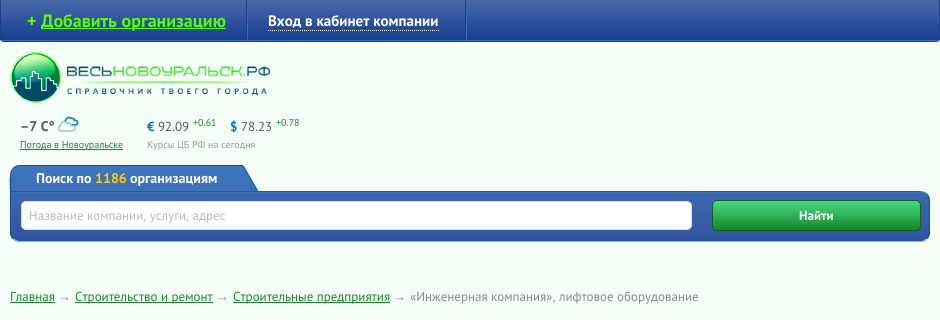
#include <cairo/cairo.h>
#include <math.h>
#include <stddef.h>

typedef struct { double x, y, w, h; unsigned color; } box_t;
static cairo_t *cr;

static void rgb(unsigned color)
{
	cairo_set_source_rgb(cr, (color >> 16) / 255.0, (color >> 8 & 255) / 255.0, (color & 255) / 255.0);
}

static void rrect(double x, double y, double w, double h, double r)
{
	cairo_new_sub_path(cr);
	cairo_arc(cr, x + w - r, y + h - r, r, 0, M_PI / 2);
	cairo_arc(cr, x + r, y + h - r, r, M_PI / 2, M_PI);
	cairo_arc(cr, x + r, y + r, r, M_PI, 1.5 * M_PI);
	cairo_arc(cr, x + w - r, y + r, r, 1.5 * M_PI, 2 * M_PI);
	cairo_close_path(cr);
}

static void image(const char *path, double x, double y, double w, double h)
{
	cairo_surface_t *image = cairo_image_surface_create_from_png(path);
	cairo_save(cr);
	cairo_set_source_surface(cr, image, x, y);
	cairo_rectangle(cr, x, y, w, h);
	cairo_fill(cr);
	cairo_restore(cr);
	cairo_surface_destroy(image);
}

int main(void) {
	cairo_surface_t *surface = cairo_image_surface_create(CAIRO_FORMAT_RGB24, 940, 320);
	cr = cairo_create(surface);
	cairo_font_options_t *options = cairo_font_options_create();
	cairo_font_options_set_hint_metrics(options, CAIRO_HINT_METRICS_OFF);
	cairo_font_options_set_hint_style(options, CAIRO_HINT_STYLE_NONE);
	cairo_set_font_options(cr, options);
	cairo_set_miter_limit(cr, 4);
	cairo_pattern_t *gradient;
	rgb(0xf5fff7);
	cairo_paint(cr);
	image("img/1.png", 0, 0, 940, 42);
	{
		static const box_t items[] = {
			{939, 0, 1, 40, 0x223e83},
			{0, 0, 1, 40, 0x223e83},
			{41, 28, 185, 1, 0x55ff00},
		};
		for (size_t i = 0; i < sizeof items / sizeof *items; i++) {
			rgb(items[i].color);
			cairo_rectangle(cr, items[i].x, items[i].y, items[i].w, items[i].h);
			cairo_fill(cr);
		}
	}
	image("img/2.png", 246, 0, 2, 40);
	cairo_new_path(cr);
	cairo_move_to(cr, 268, 30.5);
	cairo_line_to(cr, 439, 30.5);
	rgb(0xffffff);
	cairo_set_line_width(cr, 1);
	cairo_set_dash(cr, (double[]){1, 1}, 2, 0);
	cairo_stroke(cr);
	image("img/2.png", 465, 0, 2, 40);
	image("img/3.png", 10, 52, 260, 51);
	image("img/4.png", 57, 116, 22, 16);
	rgb(0x17882b);
	cairo_rectangle(cr, 20, 149, 103, 1);
	cairo_fill(cr);
	image("img/5.png", 10, 166, 233, 25);
	rgb(0x1a4aa6);
	cairo_set_fill_rule(cr, CAIRO_FILL_RULE_EVEN_ODD);
	cairo_new_path(cr);
	cairo_move_to(cr, 20, 165);
	cairo_line_to(cr, 243, 165);
	cairo_line_to(cr, 243, 191);
	cairo_line_to(cr, 10, 191);
	cairo_curve_to(cr, 10, 183, 7, 165, 20, 165);
	cairo_close_path(cr);
	cairo_move_to(cr, 20, 166);
	cairo_line_to(cr, 243, 166);
	cairo_line_to(cr, 243, 191);
	cairo_line_to(cr, 11, 191);
	cairo_line_to(cr, 11, 175);
	cairo_curve_to(cr, 11, 170, 15, 166, 20, 166);
	cairo_close_path(cr);
	cairo_fill(cr);
	image("img/6.png", 243, 166, 16, 25);
	image("img/7.png", 10, 191, 920, 51);
	cairo_set_fill_rule(cr, CAIRO_FILL_RULE_WINDING);
	cairo_new_path(cr);
	cairo_move_to(cr, 930, 232);
	cairo_line_to(cr, 930, 201);
	cairo_curve_to(cr, 930, 195, 926, 191, 920, 191);
	cairo_curve_to(cr, 925, 191, 929, 195, 929, 201);
	cairo_line_to(cr, 929, 232);
	cairo_curve_to(cr, 929, 234, 928, 237, 926, 238);
	cairo_line_to(cr, 927, 239);
	cairo_curve_to(cr, 929, 238, 930, 235, 930, 232);
	cairo_close_path(cr);
	cairo_fill(cr);
	rgb(0x9cadd0);
	cairo_new_path(cr);
	cairo_move_to(cr, 20, 242);
	cairo_line_to(cr, 920, 242);
	cairo_curve_to(cr, 923, 242, 926, 241, 927, 239);
	cairo_line_to(cr, 926, 238);
	cairo_curve_to(cr, 925, 240, 922, 241, 920, 241);
	cairo_line_to(cr, 20, 241);
	cairo_curve_to(cr, 18, 241, 15, 240, 14, 238);
	cairo_line_to(cr, 13, 239);
	cairo_curve_to(cr, 14, 241, 17, 242, 20, 242);
	cairo_close_path(cr);
	cairo_fill(cr);
	rgb(0x1a4aa6);
	cairo_new_path(cr);
	cairo_move_to(cr, 10, 191);
	cairo_line_to(cr, 11, 191);
	cairo_line_to(cr, 11, 232);
	cairo_curve_to(cr, 11, 234, 12, 237, 14, 238);
	cairo_line_to(cr, 13, 239);
	cairo_curve_to(cr, 11, 238, 10, 235, 10, 232);
	cairo_close_path(cr);
	cairo_fill(cr);
	rgb(0xffffff);
	rrect(21.5, 201.5, 670, 28, 4.5);
	cairo_fill_preserve(cr);
	rgb(0xdcdcdc);
	cairo_set_dash(cr, NULL, 0, 0);
	cairo_stroke(cr);
	cairo_save(cr);
	rrect(712, 200, 209, 31, 5);
	cairo_clip(cr);
	gradient = cairo_pattern_create_linear(817, 201, 817, 230);
	cairo_pattern_add_color_stop_rgba(gradient, 0, 0.271, 0.851, 0.502, 1);
	cairo_pattern_add_color_stop_rgba(gradient, 1, 0.09, 0.533, 0.169, 1);
	cairo_set_source(cr, gradient);
	cairo_pattern_destroy(gradient);
	cairo_rectangle(cr, 712, 201, 209, 29);
	cairo_fill(cr);
	cairo_restore(cr);
	rrect(712.5, 200.5, 208, 30, 4.5);
	rgb(0x156027);
	cairo_stroke(cr);
	{
		static const box_t items[] = {
			{10, 302, 45, 1, 0x17882b},
			{75, 302, 138, 1, 0x17882b},
			{233, 302, 157, 1, 0x17882b},
		};
		for (size_t i = 0; i < sizeof items / sizeof *items; i++) {
			rgb(items[i].color);
			cairo_rectangle(cr, items[i].x, items[i].y, items[i].w, items[i].h);
			cairo_fill(cr);
		}
	}
	cairo_select_font_face(cr, "PT Sans", CAIRO_FONT_SLANT_NORMAL, CAIRO_FONT_WEIGHT_BOLD);
	cairo_set_font_size(cr, 18);
	rgb(0x55ff00);
	cairo_move_to(cr, 27, 27);
	cairo_show_text(cr, "+");
	cairo_move_to(cr, 41, 27);
	cairo_show_text(cr, "Добавить организацию");
	cairo_set_font_size(cr, 15);
	rgb(0xffffff);
	cairo_move_to(cr, 268, 26);
	cairo_show_text(cr, "Вход в кабинет компании");
	cairo_set_font_size(cr, 14);
	rgb(0x585858);
	cairo_move_to(cr, 20, 131);
	cairo_show_text(cr, "–7 C°");
	cairo_select_font_face(cr, "PT Sans", CAIRO_FONT_SLANT_NORMAL, CAIRO_FONT_WEIGHT_NORMAL);
	cairo_set_font_size(cr, 10);
	rgb(0x17882b);
	cairo_move_to(cr, 20, 148);
	cairo_show_text(cr, "Погода в Новоуральске");
	cairo_select_font_face(cr, "PT Sans", CAIRO_FONT_SLANT_NORMAL, CAIRO_FONT_WEIGHT_BOLD);
	cairo_set_font_size(cr, 13);
	rgb(0x006ed4);
	cairo_move_to(cr, 147, 131);
	cairo_show_text(cr, "€");
	cairo_select_font_face(cr, "PT Sans", CAIRO_FONT_SLANT_NORMAL, CAIRO_FONT_WEIGHT_NORMAL);
	rgb(0x585858);
	cairo_move_to(cr, 158, 131);
	cairo_show_text(cr, "92.09");
	cairo_set_font_size(cr, 10);
	rgb(0x139128);
	cairo_move_to(cr, 193, 126);
	cairo_show_text(cr, "+0.61");
	cairo_select_font_face(cr, "PT Sans", CAIRO_FONT_SLANT_NORMAL, CAIRO_FONT_WEIGHT_BOLD);
	cairo_set_font_size(cr, 13);
	rgb(0x006ed4);
	cairo_move_to(cr, 230, 131);
	cairo_show_text(cr, "$");
	cairo_select_font_face(cr, "PT Sans", CAIRO_FONT_SLANT_NORMAL, CAIRO_FONT_WEIGHT_NORMAL);
	rgb(0x585858);
	cairo_move_to(cr, 241, 131);
	cairo_show_text(cr, "78.23");
	cairo_set_font_size(cr, 10);
	rgb(0x139128);
	cairo_move_to(cr, 276, 126);
	cairo_show_text(cr, "+0.78");
	rgb(0x999999);
	cairo_move_to(cr, 147, 148);
	cairo_show_text(cr, "Курсы ЦБ РФ на сегодня");
	cairo_select_font_face(cr, "PT Sans", CAIRO_FONT_SLANT_NORMAL, CAIRO_FONT_WEIGHT_BOLD);
	cairo_set_font_size(cr, 14);
	rgb(0xffffff);
	cairo_move_to(cr, 36, 183);
	cairo_show_text(cr, "Поиск по");
	rgb(0xffcc00);
	cairo_move_to(cr, 95, 183);
	cairo_show_text(cr, "1186");
	rgb(0xffffff);
	cairo_move_to(cr, 130, 183);
	cairo_show_text(cr, "организациям");
	cairo_select_font_face(cr, "PT Sans", CAIRO_FONT_SLANT_NORMAL, CAIRO_FONT_WEIGHT_NORMAL);
	cairo_set_font_size(cr, 13);
	rgb(0xbbbbbb);
	cairo_move_to(cr, 29, 220);
	cairo_show_text(cr, "Название компании, услуги, адрес");
	cairo_select_font_face(cr, "PT Sans", CAIRO_FONT_SLANT_NORMAL, CAIRO_FONT_WEIGHT_BOLD);
	rgb(0xffffff);
	cairo_move_to(cr, 799, 220);
	cairo_show_text(cr, "Найти");
	cairo_select_font_face(cr, "PT Sans", CAIRO_FONT_SLANT_NORMAL, CAIRO_FONT_WEIGHT_NORMAL);
	rgb(0x17882b);
	cairo_move_to(cr, 10, 301);
	cairo_show_text(cr, "Главная");
	cairo_select_font_face(cr, "Liberation Sans", CAIRO_FONT_SLANT_NORMAL, CAIRO_FONT_WEIGHT_NORMAL);
	rgb(0x888888);
	cairo_move_to(cr, 58, 301);
	cairo_show_text(cr, "→");
	cairo_select_font_face(cr, "PT Sans", CAIRO_FONT_SLANT_NORMAL, CAIRO_FONT_WEIGHT_NORMAL);
	rgb(0x17882b);
	cairo_move_to(cr, 75, 301);
	cairo_show_text(cr, "Строительство и ремонт");
	cairo_select_font_face(cr, "Liberation Sans", CAIRO_FONT_SLANT_NORMAL, CAIRO_FONT_WEIGHT_NORMAL);
	rgb(0x888888);
	cairo_move_to(cr, 216, 301);
	cairo_show_text(cr, "→");
	cairo_select_font_face(cr, "PT Sans", CAIRO_FONT_SLANT_NORMAL, CAIRO_FONT_WEIGHT_NORMAL);
	rgb(0x17882b);
	cairo_move_to(cr, 233, 301);
	cairo_show_text(cr, "Строительные предприятия");
	cairo_select_font_face(cr, "Liberation Sans", CAIRO_FONT_SLANT_NORMAL, CAIRO_FONT_WEIGHT_NORMAL);
	rgb(0x888888);
	cairo_move_to(cr, 393, 301);
	cairo_show_text(cr, "→");
	cairo_select_font_face(cr, "PT Sans", CAIRO_FONT_SLANT_NORMAL, CAIRO_FONT_WEIGHT_NORMAL);
	cairo_move_to(cr, 410, 301);
	cairo_show_text(cr, "«Инженерная компания», лифтовое оборудование");
	cairo_surface_write_to_png(surface, "page.png");
	cairo_font_options_destroy(options);
	cairo_destroy(cr);
	cairo_surface_destroy(surface);
	return 0;
}
